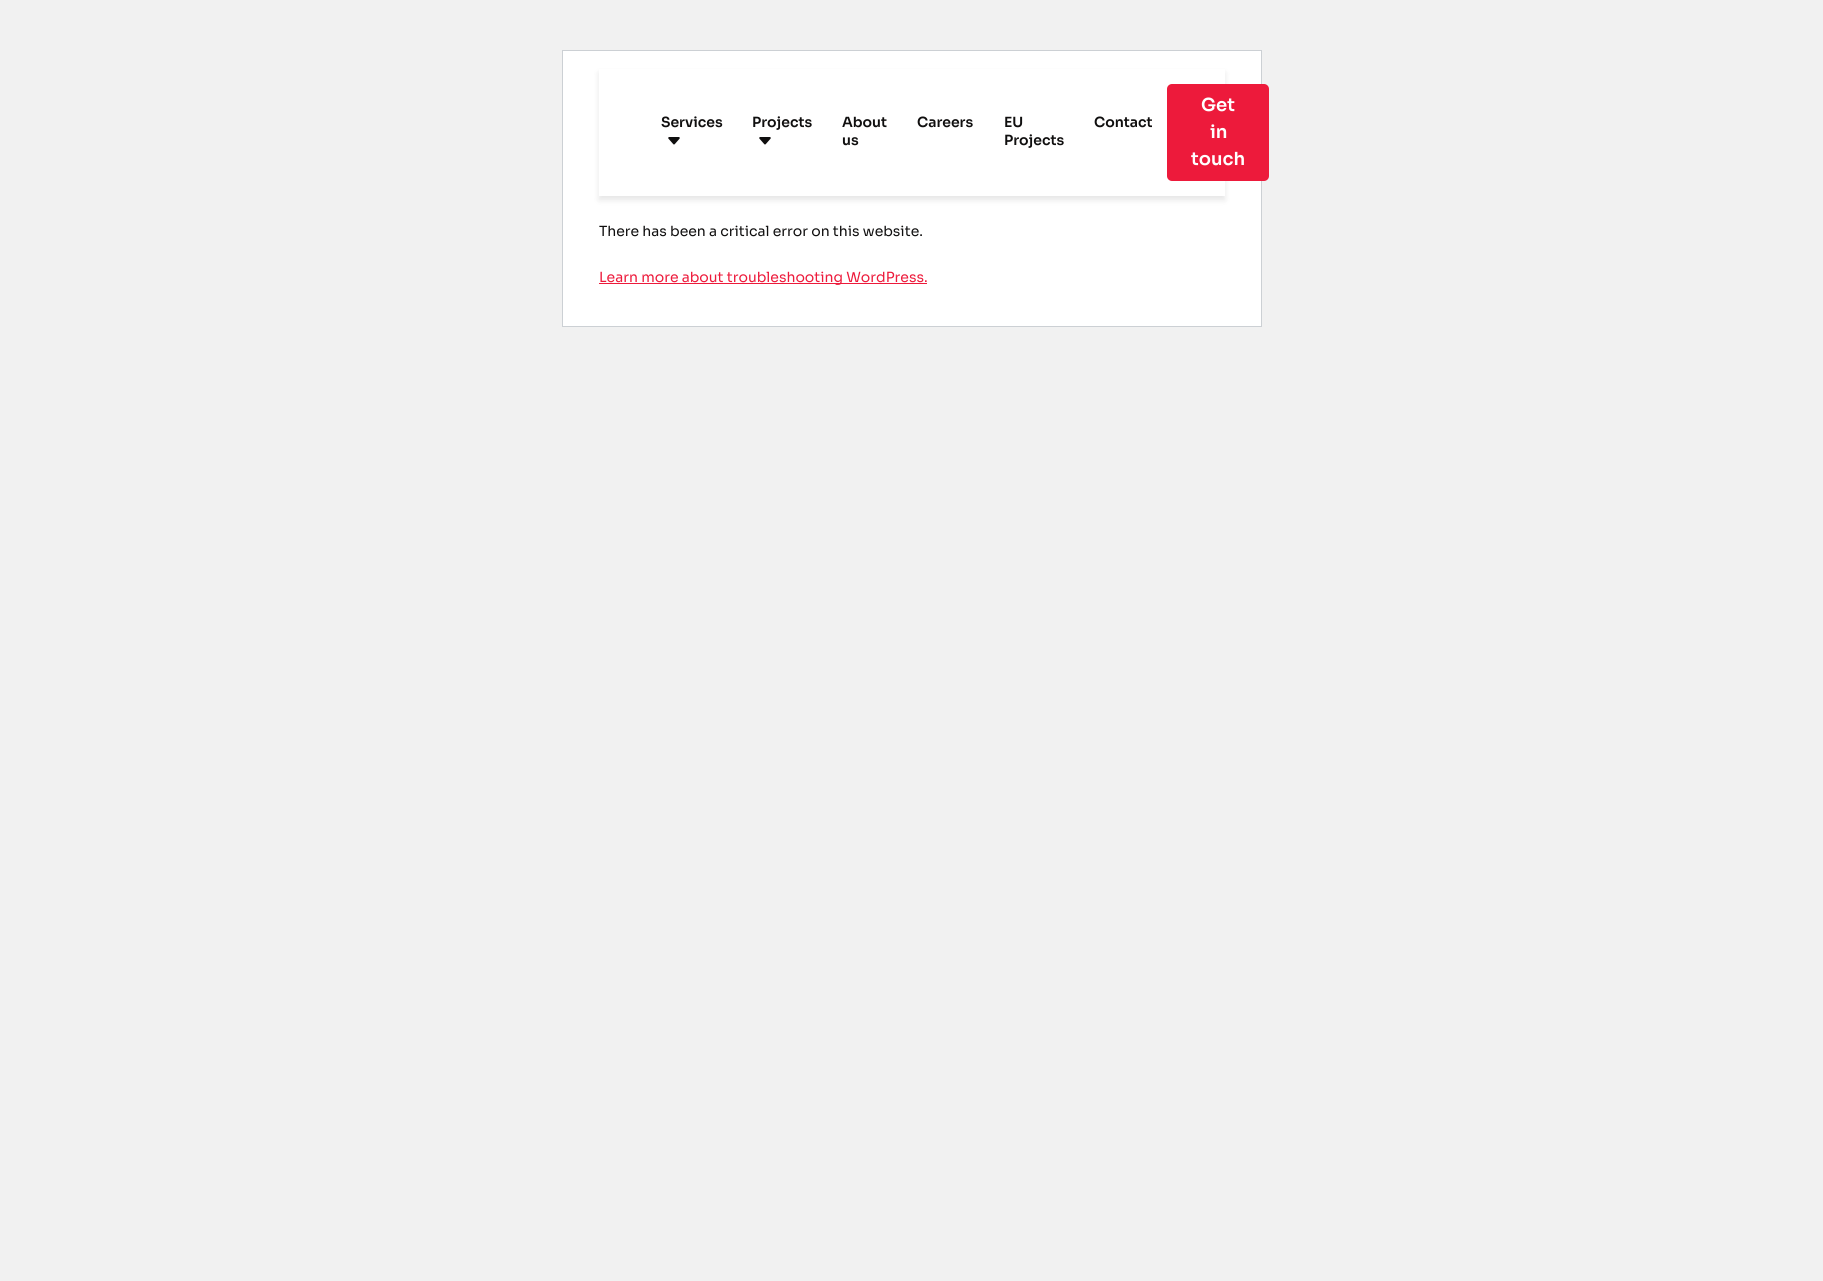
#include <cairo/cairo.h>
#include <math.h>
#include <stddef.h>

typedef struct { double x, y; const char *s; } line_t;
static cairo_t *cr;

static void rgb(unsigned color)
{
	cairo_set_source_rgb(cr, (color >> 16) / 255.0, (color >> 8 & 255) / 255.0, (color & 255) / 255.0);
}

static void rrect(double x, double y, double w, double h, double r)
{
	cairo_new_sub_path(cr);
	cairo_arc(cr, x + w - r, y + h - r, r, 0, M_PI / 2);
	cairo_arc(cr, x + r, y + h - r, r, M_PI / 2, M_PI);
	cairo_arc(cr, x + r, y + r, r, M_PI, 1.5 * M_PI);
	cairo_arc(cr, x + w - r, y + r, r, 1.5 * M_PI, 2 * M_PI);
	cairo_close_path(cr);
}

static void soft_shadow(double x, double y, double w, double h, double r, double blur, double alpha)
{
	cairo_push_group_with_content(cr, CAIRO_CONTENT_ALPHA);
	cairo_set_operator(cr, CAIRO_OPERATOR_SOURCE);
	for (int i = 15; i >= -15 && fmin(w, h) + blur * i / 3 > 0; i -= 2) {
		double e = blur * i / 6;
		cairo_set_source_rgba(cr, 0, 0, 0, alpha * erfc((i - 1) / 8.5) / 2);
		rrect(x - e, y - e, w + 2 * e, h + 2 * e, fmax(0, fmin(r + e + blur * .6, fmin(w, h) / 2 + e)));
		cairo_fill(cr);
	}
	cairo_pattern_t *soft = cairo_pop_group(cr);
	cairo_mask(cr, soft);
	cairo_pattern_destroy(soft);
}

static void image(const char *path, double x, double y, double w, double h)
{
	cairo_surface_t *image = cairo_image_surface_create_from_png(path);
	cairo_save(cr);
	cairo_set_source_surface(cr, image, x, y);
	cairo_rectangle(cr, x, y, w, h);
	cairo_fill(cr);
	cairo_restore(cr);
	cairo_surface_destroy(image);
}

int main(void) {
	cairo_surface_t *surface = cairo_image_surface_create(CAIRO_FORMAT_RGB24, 1823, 1281);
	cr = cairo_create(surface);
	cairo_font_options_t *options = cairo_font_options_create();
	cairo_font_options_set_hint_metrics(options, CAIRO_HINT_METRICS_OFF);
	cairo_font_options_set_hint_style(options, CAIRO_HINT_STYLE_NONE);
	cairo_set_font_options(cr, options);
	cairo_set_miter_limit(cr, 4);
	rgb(0xf1f1f1);
	cairo_paint(cr);
	rgb(0xffffff);
	cairo_rectangle(cr, 562.5, 50.5, 699, 276);
	cairo_fill_preserve(cr);
	rgb(0xccd0d4);
	cairo_set_line_width(cr, 1);
	cairo_stroke(cr);
	cairo_save(cr);
	cairo_set_fill_rule(cr, CAIRO_FILL_RULE_EVEN_ODD);
	cairo_new_path(cr);
	cairo_move_to(cr, 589, 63);
	cairo_line_to(cr, 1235, 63);
	cairo_line_to(cr, 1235, 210);
	cairo_line_to(cr, 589, 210);
	cairo_close_path(cr);
	cairo_move_to(cr, 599, 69);
	cairo_line_to(cr, 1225, 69);
	cairo_line_to(cr, 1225, 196);
	cairo_line_to(cr, 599, 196);
	cairo_close_path(cr);
	cairo_clip(cr);
	rgb(0x000000);
	soft_shadow(599, 73, 626, 127, 0, 3, 0.1);
	cairo_restore(cr);
	image("img/1.png", 668, 137, 12, 8);
	image("img/1.png", 759, 137, 12, 8);
	rgb(0xed1a3b);
	rrect(1167, 84, 102, 97, 5);
	cairo_fill(cr);
	cairo_rectangle(cr, 599, 283, 328, 1);
	cairo_fill(cr);
	cairo_select_font_face(cr, "Sora SemiBold", CAIRO_FONT_SLANT_NORMAL, CAIRO_FONT_WEIGHT_NORMAL);
	cairo_set_font_size(cr, 14);
	rgb(0x100f0f);
	{
		static const line_t items[] = {
			{661, 127, "Services"},
			{752, 127, "Projects"},
			{842, 127, "About"},
			{842, 145, "us"},
			{917, 127, "Careers"},
			{1004, 127, "EU"},
			{1004, 145, "Projects"},
			{1094, 127, "Contact"},
		};
		for (size_t i = 0; i < sizeof items / sizeof *items; i++) {
			cairo_move_to(cr, items[i].x, items[i].y);
			cairo_show_text(cr, items[i].s);
		}
	}
	cairo_set_font_size(cr, 18);
	rgb(0xffffff);
	{
		static const line_t items[] = {
			{1201, 111, "Get"},
			{1210, 138, "in"},
			{1191, 165, "touch"},
		};
		for (size_t i = 0; i < sizeof items / sizeof *items; i++) {
			cairo_move_to(cr, items[i].x, items[i].y);
			cairo_show_text(cr, items[i].s);
		}
	}
	cairo_select_font_face(cr, "Sora", CAIRO_FONT_SLANT_NORMAL, CAIRO_FONT_WEIGHT_NORMAL);
	cairo_set_font_size(cr, 14);
	rgb(0x100f0f);
	cairo_move_to(cr, 599, 236);
	cairo_show_text(cr, "There has been a critical error on this website.");
	rgb(0xed1a3b);
	cairo_move_to(cr, 599, 282);
	cairo_show_text(cr, "Learn more about troubleshooting WordPress.");
	cairo_surface_write_to_png(surface, "page.png");
	cairo_font_options_destroy(options);
	cairo_destroy(cr);
	cairo_surface_destroy(surface);
	return 0;
}
